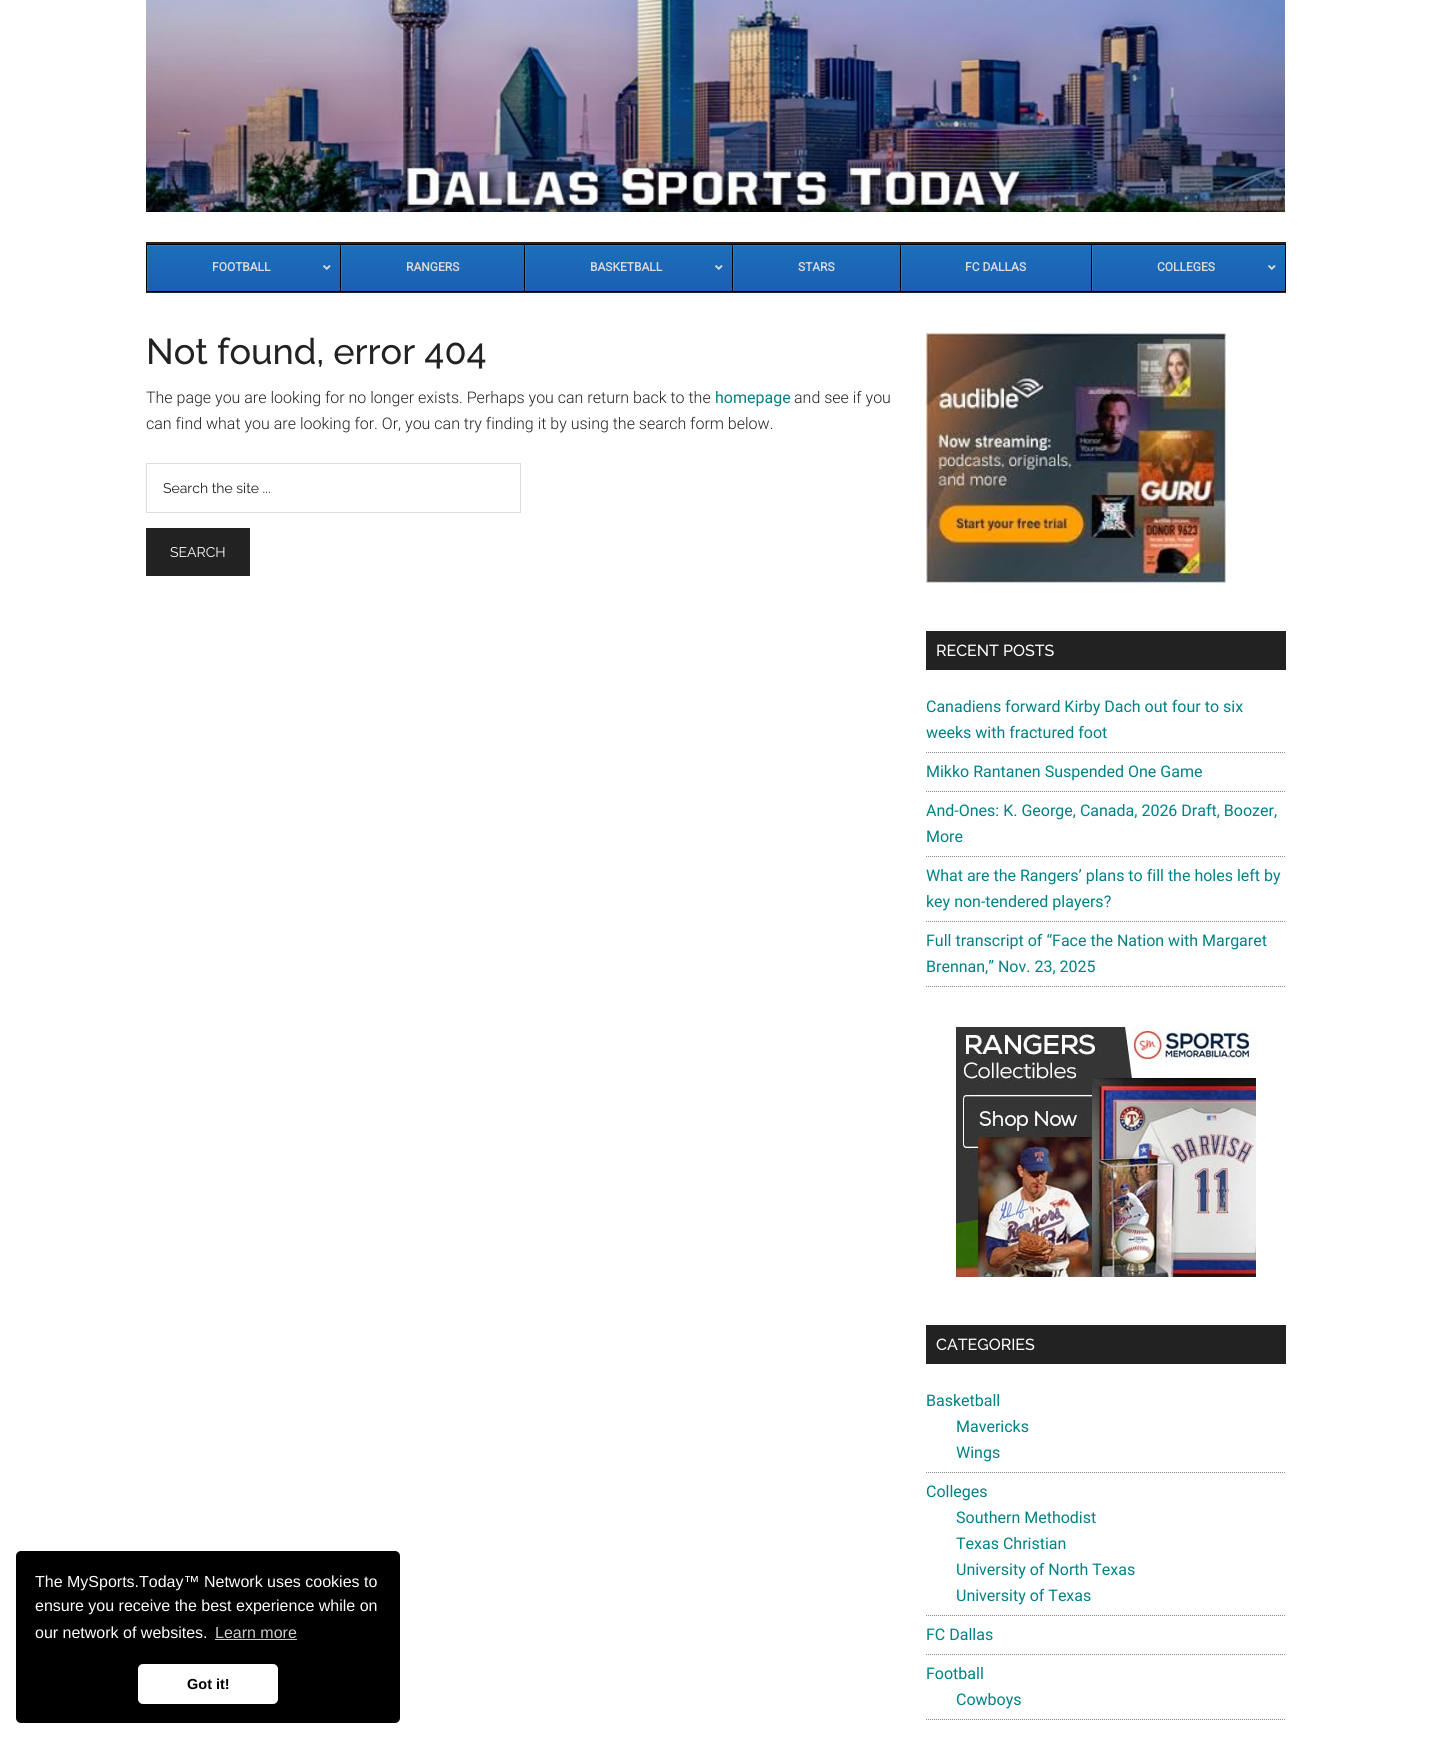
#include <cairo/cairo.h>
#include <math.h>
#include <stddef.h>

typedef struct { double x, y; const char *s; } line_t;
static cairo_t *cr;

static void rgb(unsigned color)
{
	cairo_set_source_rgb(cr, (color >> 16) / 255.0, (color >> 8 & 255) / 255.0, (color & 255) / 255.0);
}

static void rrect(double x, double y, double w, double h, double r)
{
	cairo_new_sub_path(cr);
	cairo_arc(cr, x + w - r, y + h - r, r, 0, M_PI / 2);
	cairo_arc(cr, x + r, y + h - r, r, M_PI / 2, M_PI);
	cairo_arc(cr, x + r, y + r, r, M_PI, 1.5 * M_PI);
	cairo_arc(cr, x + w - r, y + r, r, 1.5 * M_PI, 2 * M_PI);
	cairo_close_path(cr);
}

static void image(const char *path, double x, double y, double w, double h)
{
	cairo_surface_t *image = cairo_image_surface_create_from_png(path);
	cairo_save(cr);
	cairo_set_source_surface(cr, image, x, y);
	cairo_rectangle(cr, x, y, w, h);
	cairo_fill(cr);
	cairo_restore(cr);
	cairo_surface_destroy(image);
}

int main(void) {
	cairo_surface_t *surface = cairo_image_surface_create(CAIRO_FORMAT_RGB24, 1432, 1739);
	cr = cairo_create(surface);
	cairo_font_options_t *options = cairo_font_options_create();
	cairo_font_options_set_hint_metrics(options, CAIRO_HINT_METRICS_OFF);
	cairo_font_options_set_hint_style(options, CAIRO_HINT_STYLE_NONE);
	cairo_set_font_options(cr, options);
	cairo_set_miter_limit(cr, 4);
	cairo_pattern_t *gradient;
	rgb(0xffffff);
	cairo_paint(cr);
	rgb(0x222222);
	cairo_rectangle(cr, 146, 242, 1140, 2);
	cairo_fill(cr);
	image("img/1.png", 146, 0, 1139, 212);
	cairo_rectangle(cr, 146, 292, 1140, 1);
	cairo_fill(cr);
	gradient = cairo_pattern_create_linear(716, 245, 716, 291);
	cairo_pattern_add_color_stop_rgba(gradient, 0, 0.106, 0.439, 0.729, 1);
	cairo_pattern_add_color_stop_rgba(gradient, 1, 0.11, 0.369, 0.71, 1);
	cairo_set_source(cr, gradient);
	cairo_pattern_destroy(gradient);
	cairo_rectangle(cr, 147, 245, 1138, 46);
	cairo_fill(cr);
	cairo_save(cr);
	cairo_rectangle(cr, 147, 245, 1138, 46);
	cairo_clip(cr);
	cairo_set_source_rgba(cr, 1, 1, 1, 0.1);
	cairo_set_fill_rule(cr, CAIRO_FILL_RULE_EVEN_ODD);
	cairo_new_path(cr);
	cairo_move_to(cr, 48, 146);
	cairo_line_to(cr, 1384, 146);
	cairo_line_to(cr, 1384, 390);
	cairo_line_to(cr, 48, 390);
	cairo_close_path(cr);
	cairo_move_to(cr, 148, 246);
	cairo_line_to(cr, 1286, 246);
	cairo_line_to(cr, 1286, 292);
	cairo_line_to(cr, 148, 292);
	cairo_close_path(cr);
	cairo_fill(cr);
	cairo_restore(cr);
	cairo_rectangle(cr, 146.5, 244.5, 1139, 47);
	rgb(0x000000);
	cairo_set_line_width(cr, 1);
	cairo_stroke(cr);
	image("img/2.png", 323, 265, 8, 5);
	cairo_set_source_rgba(cr, 1, 1, 1, 0.1);
	cairo_rectangle(cr, 341, 245, 1, 46);
	cairo_fill(cr);
	rgb(0x000000);
	cairo_rectangle(cr, 340, 245, 1, 46);
	cairo_fill(cr);
	cairo_set_source_rgba(cr, 1, 1, 1, 0.1);
	cairo_rectangle(cr, 525, 245, 1, 46);
	cairo_fill(cr);
	rgb(0x000000);
	cairo_rectangle(cr, 524, 245, 1, 46);
	cairo_fill(cr);
	image("img/2.png", 715, 265, 8, 5);
	cairo_set_source_rgba(cr, 1, 1, 1, 0.1);
	cairo_rectangle(cr, 733, 245, 1, 46);
	cairo_fill(cr);
	rgb(0x000000);
	cairo_rectangle(cr, 732, 245, 1, 46);
	cairo_fill(cr);
	cairo_set_source_rgba(cr, 1, 1, 1, 0.1);
	cairo_rectangle(cr, 901, 245, 1, 46);
	cairo_fill(cr);
	rgb(0x000000);
	cairo_rectangle(cr, 900, 245, 1, 46);
	cairo_fill(cr);
	cairo_set_source_rgba(cr, 1, 1, 1, 0.1);
	cairo_rectangle(cr, 1092, 245, 1, 46);
	cairo_fill(cr);
	rgb(0x000000);
	cairo_rectangle(cr, 1091, 245, 1, 46);
	cairo_fill(cr);
	image("img/2.png", 1268, 265, 8, 5);
	cairo_rectangle(cr, 146.5, 463.5, 374, 49);
	rgb(0xdddddd);
	cairo_stroke(cr);
	rgb(0x222222);
	cairo_rectangle(cr, 146, 528, 104, 48);
	cairo_fill(cr);
	image("img/3.png", 926, 333, 300, 250);
	cairo_rectangle(cr, 926, 631, 360, 39);
	cairo_fill(cr);
	cairo_new_path(cr);
	cairo_move_to(cr, 926, 752.5);
	cairo_line_to(cr, 1286, 752.5);
	rgb(0x888888);
	cairo_set_dash(cr, (double[]){1, 1}, 2, 0);
	cairo_stroke(cr);
	cairo_new_path(cr);
	cairo_move_to(cr, 926, 791.5);
	cairo_line_to(cr, 1286, 791.5);
	cairo_stroke(cr);
	cairo_new_path(cr);
	cairo_move_to(cr, 926, 856.5);
	cairo_line_to(cr, 1286, 856.5);
	cairo_stroke(cr);
	cairo_new_path(cr);
	cairo_move_to(cr, 926, 921.5);
	cairo_line_to(cr, 1286, 921.5);
	cairo_stroke(cr);
	cairo_new_path(cr);
	cairo_move_to(cr, 926, 986.5);
	cairo_line_to(cr, 1286, 986.5);
	cairo_stroke(cr);
	image("img/4.png", 956, 1027, 300, 250);
	rgb(0x222222);
	cairo_rectangle(cr, 926, 1325, 360, 39);
	cairo_fill(cr);
	cairo_new_path(cr);
	cairo_move_to(cr, 926, 1472.5);
	cairo_line_to(cr, 1286, 1472.5);
	rgb(0x888888);
	cairo_stroke(cr);
	cairo_new_path(cr);
	cairo_move_to(cr, 926, 1615.5);
	cairo_line_to(cr, 1286, 1615.5);
	cairo_stroke(cr);
	cairo_new_path(cr);
	cairo_move_to(cr, 926, 1654.5);
	cairo_line_to(cr, 1286, 1654.5);
	cairo_stroke(cr);
	cairo_new_path(cr);
	cairo_move_to(cr, 926, 1719.5);
	cairo_line_to(cr, 1286, 1719.5);
	cairo_stroke(cr);
	rgb(0x000000);
	rrect(16, 1551, 384, 172, 5);
	cairo_fill(cr);
	rgb(0xcccccc);
	cairo_rectangle(cr, 215, 1639, 82, 1);
	cairo_fill(cr);
	rgb(0xffffff);
	rrect(138, 1664, 140, 40, 5);
	cairo_fill(cr);
	cairo_select_font_face(cr, "Roboto", CAIRO_FONT_SLANT_NORMAL, CAIRO_FONT_WEIGHT_BOLD);
	cairo_set_font_size(cr, 12);
	rgb(0xd9d9d9);
	{
		static const line_t items[] = {
			{212, 271, "FOOTBALL"},
			{406, 271, "RANGERS"},
			{590, 271, "BASKETBALL"},
			{798, 271, "STARS"},
			{965, 271, "FC DALLAS"},
			{1157, 271, "COLLEGES"},
		};
		for (size_t i = 0; i < sizeof items / sizeof *items; i++) {
			cairo_move_to(cr, items[i].x, items[i].y);
			cairo_show_text(cr, items[i].s);
		}
	}
	cairo_select_font_face(cr, "Raleway Medium", CAIRO_FONT_SLANT_NORMAL, CAIRO_FONT_WEIGHT_NORMAL);
	cairo_set_font_size(cr, 36);
	rgb(0x222222);
	cairo_move_to(cr, 146, 364);
	cairo_show_text(cr, "Not found, error 404");
	cairo_select_font_face(cr, "Roboto Light", CAIRO_FONT_SLANT_NORMAL, CAIRO_FONT_WEIGHT_NORMAL);
	cairo_set_font_size(cr, 16);
	cairo_move_to(cr, 146, 403);
	cairo_show_text(cr, "The page you are looking for no longer exists. Perhaps you can return back to the");
	cairo_select_font_face(cr, "Roboto", CAIRO_FONT_SLANT_NORMAL, CAIRO_FONT_WEIGHT_NORMAL);
	rgb(0x008285);
	cairo_move_to(cr, 715, 403);
	cairo_show_text(cr, "homepage");
	cairo_select_font_face(cr, "Roboto Light", CAIRO_FONT_SLANT_NORMAL, CAIRO_FONT_WEIGHT_NORMAL);
	rgb(0x222222);
	cairo_move_to(cr, 794, 403);
	cairo_show_text(cr, "and see if you");
	cairo_move_to(cr, 146, 429);
	cairo_show_text(cr, "can find what you are looking for. Or, you can try finding it by using the search form below.");
	cairo_select_font_face(cr, "Raleway", CAIRO_FONT_SLANT_NORMAL, CAIRO_FONT_WEIGHT_NORMAL);
	cairo_set_font_size(cr, 14);
	cairo_move_to(cr, 163, 493);
	cairo_show_text(cr, "Search the site ...");
	rgb(0xffffff);
	cairo_move_to(cr, 170, 557);
	cairo_show_text(cr, "SEARCH");
	cairo_select_font_face(cr, "Raleway Medium", CAIRO_FONT_SLANT_NORMAL, CAIRO_FONT_WEIGHT_NORMAL);
	cairo_set_font_size(cr, 16);
	cairo_move_to(cr, 936, 656);
	cairo_show_text(cr, "RECENT POSTS");
	cairo_select_font_face(cr, "Roboto", CAIRO_FONT_SLANT_NORMAL, CAIRO_FONT_WEIGHT_NORMAL);
	rgb(0x008285);
	{
		static const line_t items[] = {
			{926, 712, "Canadiens forward Kirby Dach out four to six"},
			{926, 738, "weeks with fractured foot"},
			{926, 777, "Mikko Rantanen Suspended One Game"},
			{926, 816, "And-Ones: K. George, Canada, 2026 Draft, Boozer,"},
			{926, 842, "More"},
			{926, 881, "What are the Rangers’ plans to fill the holes left by"},
			{926, 907, "key non-tendered players?"},
			{926, 946, "Full transcript of “Face the Nation with Margaret"},
			{926, 972, "Brennan,” Nov. 23, 2025"},
		};
		for (size_t i = 0; i < sizeof items / sizeof *items; i++) {
			cairo_move_to(cr, items[i].x, items[i].y);
			cairo_show_text(cr, items[i].s);
		}
	}
	cairo_select_font_face(cr, "Raleway Medium", CAIRO_FONT_SLANT_NORMAL, CAIRO_FONT_WEIGHT_NORMAL);
	rgb(0xffffff);
	cairo_move_to(cr, 936, 1350);
	cairo_show_text(cr, "CATEGORIES");
	cairo_select_font_face(cr, "Roboto", CAIRO_FONT_SLANT_NORMAL, CAIRO_FONT_WEIGHT_NORMAL);
	rgb(0x008285);
	{
		static const line_t items[] = {
			{926, 1406, "Basketball"},
			{956, 1432, "Mavericks"},
			{956, 1458, "Wings"},
			{926, 1497, "Colleges"},
			{956, 1523, "Southern Methodist"},
			{956, 1549, "Texas Christian"},
			{956, 1575, "University of North Texas"},
			{956, 1601, "University of Texas"},
			{926, 1640, "FC Dallas"},
			{926, 1679, "Football"},
			{956, 1705, "Cowboys"},
		};
		for (size_t i = 0; i < sizeof items / sizeof *items; i++) {
			cairo_move_to(cr, items[i].x, items[i].y);
			cairo_show_text(cr, items[i].s);
		}
	}
	cairo_select_font_face(cr, "Liberation Sans", CAIRO_FONT_SLANT_NORMAL, CAIRO_FONT_WEIGHT_NORMAL);
	rgb(0xffffff);
	{
		static const line_t items[] = {
			{35, 1587, "The MySports.Today™ Network uses cookies to"},
			{35, 1611, "ensure you receive the best experience while on"},
			{35, 1638, "our network of websites."},
		};
		for (size_t i = 0; i < sizeof items / sizeof *items; i++) {
			cairo_move_to(cr, items[i].x, items[i].y);
			cairo_show_text(cr, items[i].s);
		}
	}
	rgb(0xcccccc);
	cairo_move_to(cr, 215, 1638);
	cairo_show_text(cr, "Learn more");
	cairo_select_font_face(cr, "Liberation Sans", CAIRO_FONT_SLANT_NORMAL, CAIRO_FONT_WEIGHT_BOLD);
	cairo_set_font_size(cr, 14.5);
	rgb(0x000000);
	cairo_move_to(cr, 187, 1689);
	cairo_show_text(cr, "Got it!");
	cairo_surface_write_to_png(surface, "page.png");
	cairo_font_options_destroy(options);
	cairo_destroy(cr);
	cairo_surface_destroy(surface);
	return 0;
}
